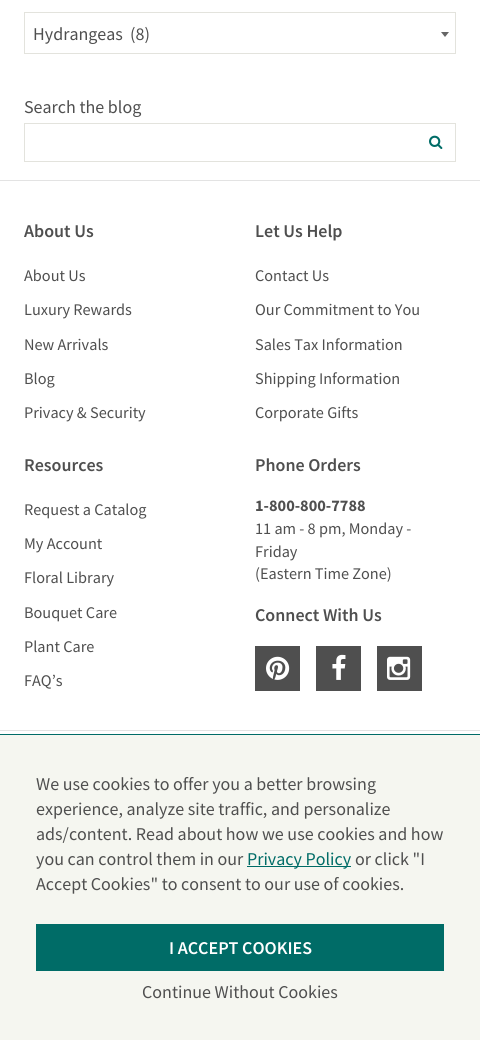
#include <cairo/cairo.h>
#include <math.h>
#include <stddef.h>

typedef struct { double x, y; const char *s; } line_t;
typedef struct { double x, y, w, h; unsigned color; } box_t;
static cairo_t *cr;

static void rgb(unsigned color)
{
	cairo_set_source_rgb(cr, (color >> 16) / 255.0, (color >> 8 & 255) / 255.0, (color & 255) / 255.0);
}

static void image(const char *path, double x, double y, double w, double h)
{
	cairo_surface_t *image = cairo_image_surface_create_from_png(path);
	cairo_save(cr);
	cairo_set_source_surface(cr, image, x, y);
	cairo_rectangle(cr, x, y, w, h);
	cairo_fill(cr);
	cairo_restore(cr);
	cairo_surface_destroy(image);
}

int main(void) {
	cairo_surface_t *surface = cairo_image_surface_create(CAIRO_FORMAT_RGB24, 480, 1040);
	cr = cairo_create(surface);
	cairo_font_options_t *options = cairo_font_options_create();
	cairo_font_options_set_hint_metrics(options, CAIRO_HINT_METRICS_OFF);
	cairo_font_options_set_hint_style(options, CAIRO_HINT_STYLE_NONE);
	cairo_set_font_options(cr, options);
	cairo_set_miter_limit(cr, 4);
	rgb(0xffffff);
	cairo_paint(cr);
	cairo_rectangle(cr, 24.5, 12.5, 431, 41);
	rgb(0xe3e3dd);
	cairo_set_line_width(cr, 1);
	cairo_stroke(cr);
	rgb(0x666666);
	cairo_new_path(cr);
	cairo_move_to(cr, 441, 32);
	cairo_line_to(cr, 449, 32);
	cairo_line_to(cr, 445, 37);
	cairo_close_path(cr);
	cairo_fill(cr);
	cairo_rectangle(cr, 24.5, 123.5, 431, 38);
	rgb(0xe3e3dd);
	cairo_stroke(cr);
	image("img/1.png", 429, 135, 14, 14);
	rgb(0xe3e3e3);
	cairo_rectangle(cr, 0, 180, 480, 1);
	cairo_fill(cr);
	rgb(0x4f4f4f);
	cairo_rectangle(cr, 255, 646, 45, 45);
	cairo_fill(cr);
	image("img/2.png", 266, 656, 24, 24);
	cairo_rectangle(cr, 316, 646, 45, 45);
	cairo_fill(cr);
	image("img/3.png", 332, 654, 14, 26);
	cairo_rectangle(cr, 377, 646, 45, 45);
	cairo_fill(cr);
	image("img/4.png", 387, 656, 24, 24);
	{
		static const box_t items[] = {
			{0, 730, 480, 1, 0xe3e3e3},
			{0, 735, 480, 305, 0xf5f6f0},
			{0, 734, 480, 1, 0x006c67},
			{247, 866, 104, 1, 0x006c67},
			{36, 924, 408, 47, 0x006c67},
		};
		for (size_t i = 0; i < sizeof items / sizeof *items; i++) {
			rgb(items[i].color);
			cairo_rectangle(cr, items[i].x, items[i].y, items[i].w, items[i].h);
			cairo_fill(cr);
		}
	}
	cairo_select_font_face(cr, "Source Sans Pro", CAIRO_FONT_SLANT_NORMAL, CAIRO_FONT_WEIGHT_NORMAL);
	cairo_set_font_size(cr, 18);
	rgb(0x4f4f4f);
	cairo_move_to(cr, 33, 40);
	cairo_show_text(cr, "Hydrangeas  (8)");
	cairo_move_to(cr, 24, 113);
	cairo_show_text(cr, "Search the blog");
	cairo_select_font_face(cr, "Source Sans Pro SemiBold", CAIRO_FONT_SLANT_NORMAL, CAIRO_FONT_WEIGHT_NORMAL);
	cairo_move_to(cr, 24, 237);
	cairo_show_text(cr, "About Us");
	cairo_select_font_face(cr, "Source Sans Pro", CAIRO_FONT_SLANT_NORMAL, CAIRO_FONT_WEIGHT_NORMAL);
	cairo_set_font_size(cr, 16.25);
	{
		static const line_t items[] = {
			{24, 281, "About Us"},
			{24, 315, "Luxury Rewards"},
			{24, 350, "New Arrivals"},
			{24, 384, "Blog"},
			{24, 418, "Privacy & Security"},
		};
		for (size_t i = 0; i < sizeof items / sizeof *items; i++) {
			cairo_move_to(cr, items[i].x, items[i].y);
			cairo_show_text(cr, items[i].s);
		}
	}
	cairo_select_font_face(cr, "Source Sans Pro SemiBold", CAIRO_FONT_SLANT_NORMAL, CAIRO_FONT_WEIGHT_NORMAL);
	cairo_set_font_size(cr, 18);
	cairo_move_to(cr, 255, 237);
	cairo_show_text(cr, "Let Us Help");
	cairo_select_font_face(cr, "Source Sans Pro", CAIRO_FONT_SLANT_NORMAL, CAIRO_FONT_WEIGHT_NORMAL);
	cairo_set_font_size(cr, 16.25);
	{
		static const line_t items[] = {
			{255, 281, "Contact Us"},
			{255, 315, "Our Commitment to You"},
			{255, 350, "Sales Tax Information"},
			{255, 384, "Shipping Information"},
			{255, 418, "Corporate Gifts"},
		};
		for (size_t i = 0; i < sizeof items / sizeof *items; i++) {
			cairo_move_to(cr, items[i].x, items[i].y);
			cairo_show_text(cr, items[i].s);
		}
	}
	cairo_select_font_face(cr, "Source Sans Pro SemiBold", CAIRO_FONT_SLANT_NORMAL, CAIRO_FONT_WEIGHT_NORMAL);
	cairo_set_font_size(cr, 18);
	cairo_move_to(cr, 24, 471);
	cairo_show_text(cr, "Resources");
	cairo_select_font_face(cr, "Source Sans Pro", CAIRO_FONT_SLANT_NORMAL, CAIRO_FONT_WEIGHT_NORMAL);
	cairo_set_font_size(cr, 16.25);
	{
		static const line_t items[] = {
			{24, 515, "Request a Catalog"},
			{24, 549, "My Account"},
			{24, 583, "Floral Library"},
			{24, 618, "Bouquet Care"},
			{24, 652, "Plant Care"},
			{24, 686, "FAQ’s"},
		};
		for (size_t i = 0; i < sizeof items / sizeof *items; i++) {
			cairo_move_to(cr, items[i].x, items[i].y);
			cairo_show_text(cr, items[i].s);
		}
	}
	cairo_select_font_face(cr, "Source Sans Pro SemiBold", CAIRO_FONT_SLANT_NORMAL, CAIRO_FONT_WEIGHT_NORMAL);
	cairo_set_font_size(cr, 18);
	cairo_move_to(cr, 255, 471);
	cairo_show_text(cr, "Phone Orders");
	cairo_select_font_face(cr, "Source Sans Pro", CAIRO_FONT_SLANT_NORMAL, CAIRO_FONT_WEIGHT_BOLD);
	cairo_set_font_size(cr, 16.25);
	cairo_move_to(cr, 255, 511);
	cairo_show_text(cr, "1-800-800-7788");
	cairo_select_font_face(cr, "Source Sans Pro", CAIRO_FONT_SLANT_NORMAL, CAIRO_FONT_WEIGHT_NORMAL);
	{
		static const line_t items[] = {
			{255, 534, "11 am - 8 pm, Monday -"},
			{255, 557, "Friday"},
			{255, 579, "(Eastern Time Zone)"},
		};
		for (size_t i = 0; i < sizeof items / sizeof *items; i++) {
			cairo_move_to(cr, items[i].x, items[i].y);
			cairo_show_text(cr, items[i].s);
		}
	}
	cairo_select_font_face(cr, "Source Sans Pro SemiBold", CAIRO_FONT_SLANT_NORMAL, CAIRO_FONT_WEIGHT_NORMAL);
	cairo_set_font_size(cr, 18);
	cairo_move_to(cr, 255, 621);
	cairo_show_text(cr, "Connect With Us");
	cairo_select_font_face(cr, "Source Sans Pro", CAIRO_FONT_SLANT_NORMAL, CAIRO_FONT_WEIGHT_NORMAL);
	{
		static const line_t items[] = {
			{36, 790, "We use cookies to offer you a better browsing"},
			{36, 815, "experience, analyze site traffic, and personalize"},
			{36, 840, "ads/content. Read about how we use cookies and how"},
			{36, 865, "you can control them in our"},
		};
		for (size_t i = 0; i < sizeof items / sizeof *items; i++) {
			cairo_move_to(cr, items[i].x, items[i].y);
			cairo_show_text(cr, items[i].s);
		}
	}
	rgb(0x006c67);
	cairo_move_to(cr, 247, 865);
	cairo_show_text(cr, "Privacy Policy");
	rgb(0x4f4f4f);
	cairo_move_to(cr, 355, 865);
	cairo_show_text(cr, "or click \"I");
	cairo_move_to(cr, 36, 890);
	cairo_show_text(cr, "Accept Cookies\" to consent to our use of cookies.");
	cairo_select_font_face(cr, "Source Sans Pro SemiBold", CAIRO_FONT_SLANT_NORMAL, CAIRO_FONT_WEIGHT_NORMAL);
	rgb(0xffffff);
	cairo_move_to(cr, 169, 954);
	cairo_show_text(cr, "I ACCEPT COOKIES");
	cairo_select_font_face(cr, "Source Sans Pro", CAIRO_FONT_SLANT_NORMAL, CAIRO_FONT_WEIGHT_NORMAL);
	rgb(0x4f4f4f);
	cairo_move_to(cr, 142, 998);
	cairo_show_text(cr, "Continue Without Cookies");
	cairo_surface_write_to_png(surface, "page.png");
	cairo_font_options_destroy(options);
	cairo_destroy(cr);
	cairo_surface_destroy(surface);
	return 0;
}
